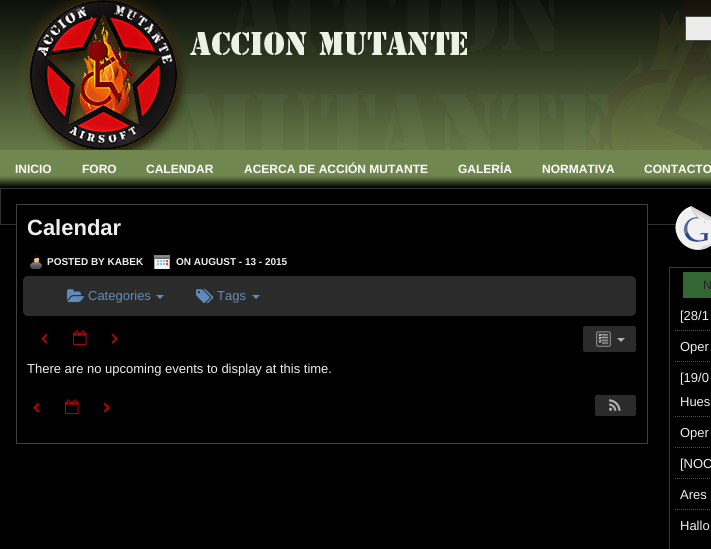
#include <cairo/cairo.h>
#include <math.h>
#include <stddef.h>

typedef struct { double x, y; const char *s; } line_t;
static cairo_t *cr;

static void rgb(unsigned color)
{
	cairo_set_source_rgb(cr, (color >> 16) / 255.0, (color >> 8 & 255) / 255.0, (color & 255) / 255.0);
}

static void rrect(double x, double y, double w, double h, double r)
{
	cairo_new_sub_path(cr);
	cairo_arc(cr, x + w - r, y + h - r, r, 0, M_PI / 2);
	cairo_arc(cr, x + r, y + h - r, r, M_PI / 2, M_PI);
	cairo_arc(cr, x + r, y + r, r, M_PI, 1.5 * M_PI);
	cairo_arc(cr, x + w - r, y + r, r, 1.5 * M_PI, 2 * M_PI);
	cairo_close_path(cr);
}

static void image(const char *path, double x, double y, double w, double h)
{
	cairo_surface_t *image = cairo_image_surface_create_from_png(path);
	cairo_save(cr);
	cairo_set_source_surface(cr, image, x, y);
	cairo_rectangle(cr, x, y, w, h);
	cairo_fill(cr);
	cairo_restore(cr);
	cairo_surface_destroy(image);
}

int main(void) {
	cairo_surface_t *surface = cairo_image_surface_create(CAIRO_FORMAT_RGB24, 711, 549);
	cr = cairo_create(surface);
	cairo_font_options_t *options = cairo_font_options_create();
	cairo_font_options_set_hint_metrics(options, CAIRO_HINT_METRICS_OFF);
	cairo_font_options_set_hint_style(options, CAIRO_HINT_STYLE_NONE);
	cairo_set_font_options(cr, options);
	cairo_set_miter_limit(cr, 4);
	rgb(0x000000);
	cairo_paint(cr);
	image("img/1.png", 0, 0, 711, 150);
	rgb(0xececec);
	cairo_rectangle(cr, 685.5, 16.5, 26, 24);
	cairo_fill_preserve(cr);
	rgb(0x464f46);
	cairo_set_line_width(cr, 1);
	cairo_stroke(cr);
	image("img/2.png", 0, 150, 711, 38);
	cairo_rectangle(cr, 0.5, 188.5, 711, 36);
	rgb(0x323232);
	cairo_stroke(cr);
	rgb(0x000000);
	cairo_rectangle(cr, 17, 224, 630, 1);
	cairo_fill(cr);
	cairo_rectangle(cr, 16.5, 204.5, 631, 239);
	rgb(0x424141);
	cairo_stroke(cr);
	image("img/3.png", 30, 255, 12, 14);
	image("img/4.png", 154, 255, 16, 14);
	rgb(0x2b2b2b);
	rrect(22.5, 275.5, 614, 41, 5.5);
	cairo_fill_preserve(cr);
	rgb(0x000000);
	cairo_stroke(cr);
	image("img/5.png", 67, 289, 17, 13);
	rgb(0x5e8cba);
	cairo_new_path(cr);
	cairo_move_to(cr, 156, 295);
	cairo_line_to(cr, 164, 295);
	cairo_line_to(cr, 160, 299);
	cairo_close_path(cr);
	cairo_fill(cr);
	image("img/6.png", 196, 289, 18, 14);
	cairo_new_path(cr);
	cairo_move_to(cr, 252, 295);
	cairo_line_to(cr, 260, 295);
	cairo_line_to(cr, 256, 299);
	cairo_close_path(cr);
	cairo_fill(cr);
	image("img/7.png", 41, 334, 7, 10);
	image("img/8.png", 73, 330, 14, 16);
	image("img/9.png", 111, 334, 7, 10);
	rgb(0x2b2b2b);
	rrect(582.5, 325.5, 54, 27, 2.5);
	cairo_fill_preserve(cr);
	rgb(0x000000);
	cairo_stroke(cr);
	image("img/10.png", 596, 331, 15, 16);
	rgb(0xb0b0b0);
	cairo_new_path(cr);
	cairo_move_to(cr, 617, 338);
	cairo_line_to(cr, 625, 338);
	cairo_line_to(cr, 621, 342);
	cairo_close_path(cr);
	cairo_fill(cr);
	image("img/7.png", 33, 403, 7, 10);
	image("img/8.png", 65, 399, 14, 16);
	image("img/9.png", 103, 403, 7, 10);
	rgb(0x2b2b2b);
	rrect(594.5, 394.5, 42, 22, 2.5);
	cairo_fill_preserve(cr);
	rgb(0x000000);
	cairo_stroke(cr);
	image("img/11.png", 609, 399, 12, 12);
	image("img/12.png", 675, 206, 36, 44);
	cairo_rectangle(cr, 669.5, 267.5, 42, 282);
	rgb(0x3a3a3a);
	cairo_stroke(cr);
	rgb(0x336633);
	cairo_rectangle(cr, 683, 272, 28, 26);
	cairo_fill(cr);
	cairo_new_path(cr);
	cairo_move_to(cr, 675, 330.5);
	cairo_line_to(cr, 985, 330.5);
	rgb(0x504f4f);
	cairo_set_dash(cr, (double[]){1, 1}, 2, 0);
	cairo_stroke(cr);
	cairo_new_path(cr);
	cairo_move_to(cr, 675, 361.5);
	cairo_line_to(cr, 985, 361.5);
	cairo_stroke(cr);
	cairo_new_path(cr);
	cairo_move_to(cr, 675, 416.5);
	cairo_line_to(cr, 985, 416.5);
	cairo_stroke(cr);
	cairo_new_path(cr);
	cairo_move_to(cr, 675, 447.5);
	cairo_line_to(cr, 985, 447.5);
	cairo_stroke(cr);
	cairo_new_path(cr);
	cairo_move_to(cr, 675, 478.5);
	cairo_line_to(cr, 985, 478.5);
	cairo_stroke(cr);
	cairo_new_path(cr);
	cairo_move_to(cr, 675, 509.5);
	cairo_line_to(cr, 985, 509.5);
	cairo_stroke(cr);
	cairo_select_font_face(cr, "Liberation Sans", CAIRO_FONT_SLANT_NORMAL, CAIRO_FONT_WEIGHT_BOLD);
	cairo_set_font_size(cr, 12);
	rgb(0xffffff);
	{
		static const line_t items[] = {
			{15, 173, "INICIO"},
			{82, 173, "FORO"},
			{146, 173, "CALENDAR"},
			{244, 173, "ACERCA DE ACCIÓN MUTANTE"},
			{458, 173, "GALERÍA"},
			{542, 173, "NORMATIVA"},
			{644, 173, "CONTACTO"},
		};
		for (size_t i = 0; i < sizeof items / sizeof *items; i++) {
			cairo_move_to(cr, items[i].x, items[i].y);
			cairo_show_text(cr, items[i].s);
		}
	}
	cairo_set_font_size(cr, 22);
	rgb(0xeeeeee);
	cairo_move_to(cr, 27, 235);
	cairo_show_text(cr, "Calendar");
	cairo_set_font_size(cr, 10);
	cairo_move_to(cr, 47, 265);
	cairo_show_text(cr, "POSTED BY KABEK");
	cairo_move_to(cr, 176, 265);
	cairo_show_text(cr, "ON AUGUST - 13 - 2015");
	cairo_select_font_face(cr, "Liberation Sans", CAIRO_FONT_SLANT_NORMAL, CAIRO_FONT_WEIGHT_NORMAL);
	cairo_set_font_size(cr, 13);
	rgb(0x5e8cba);
	cairo_move_to(cr, 88, 300);
	cairo_show_text(cr, "Categories");
	cairo_move_to(cr, 217, 300);
	cairo_show_text(cr, "Tags");
	rgb(0xeeeeee);
	cairo_move_to(cr, 27, 373);
	cairo_show_text(cr, "There are no upcoming events to display at this time.");
	cairo_set_font_size(cr, 12);
	rgb(0x222222);
	cairo_move_to(cr, 703, 289);
	cairo_show_text(cr, "N");
	cairo_set_font_size(cr, 13);
	rgb(0xeeeeee);
	{
		static const line_t items[] = {
			{680, 320, "[28/1"},
			{680, 351, "Oper"},
			{680, 382, "[19/0"},
			{680, 406, "Hues"},
			{680, 437, "Oper"},
			{680, 468, "[NOC"},
			{680, 499, "Ares"},
			{680, 530, "Hallo"},
		};
		for (size_t i = 0; i < sizeof items / sizeof *items; i++) {
			cairo_move_to(cr, items[i].x, items[i].y);
			cairo_show_text(cr, items[i].s);
		}
	}
	cairo_surface_write_to_png(surface, "page.png");
	cairo_font_options_destroy(options);
	cairo_destroy(cr);
	cairo_surface_destroy(surface);
	return 0;
}
